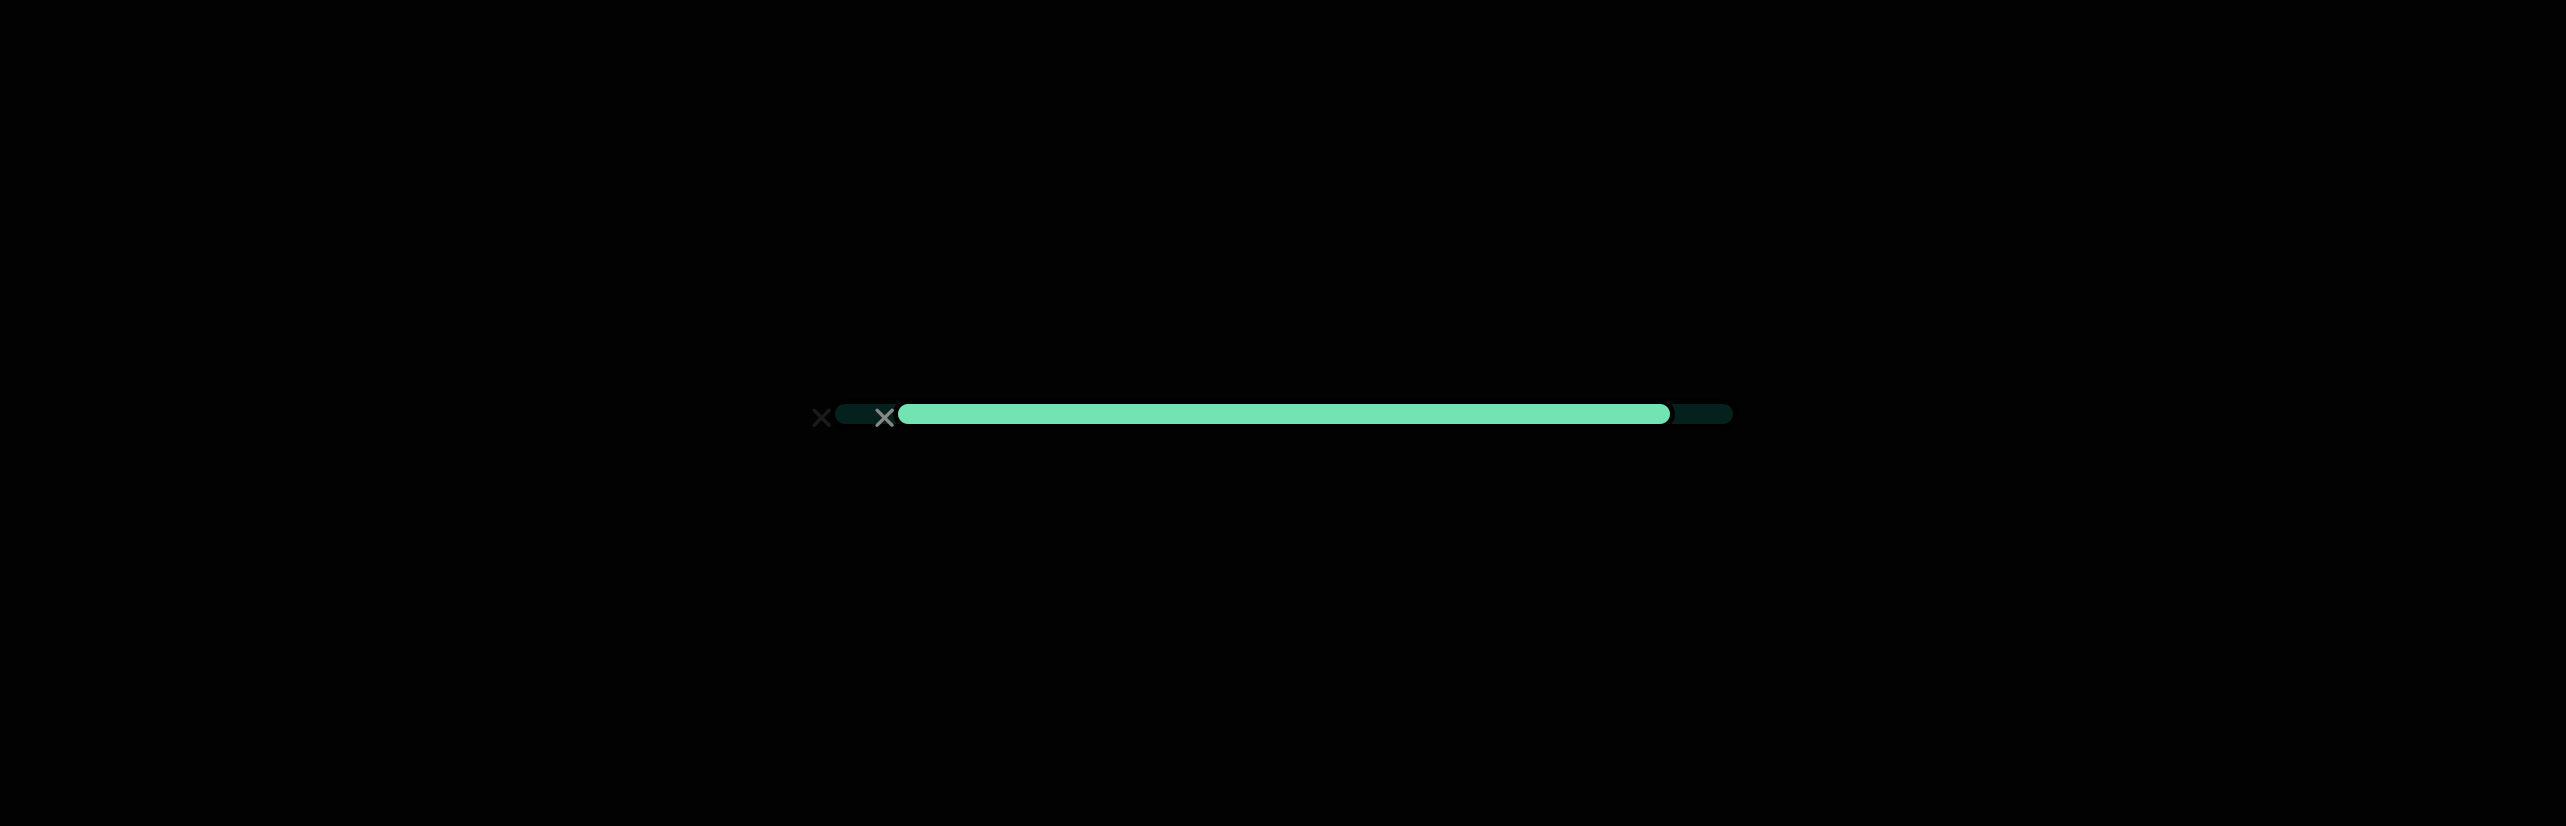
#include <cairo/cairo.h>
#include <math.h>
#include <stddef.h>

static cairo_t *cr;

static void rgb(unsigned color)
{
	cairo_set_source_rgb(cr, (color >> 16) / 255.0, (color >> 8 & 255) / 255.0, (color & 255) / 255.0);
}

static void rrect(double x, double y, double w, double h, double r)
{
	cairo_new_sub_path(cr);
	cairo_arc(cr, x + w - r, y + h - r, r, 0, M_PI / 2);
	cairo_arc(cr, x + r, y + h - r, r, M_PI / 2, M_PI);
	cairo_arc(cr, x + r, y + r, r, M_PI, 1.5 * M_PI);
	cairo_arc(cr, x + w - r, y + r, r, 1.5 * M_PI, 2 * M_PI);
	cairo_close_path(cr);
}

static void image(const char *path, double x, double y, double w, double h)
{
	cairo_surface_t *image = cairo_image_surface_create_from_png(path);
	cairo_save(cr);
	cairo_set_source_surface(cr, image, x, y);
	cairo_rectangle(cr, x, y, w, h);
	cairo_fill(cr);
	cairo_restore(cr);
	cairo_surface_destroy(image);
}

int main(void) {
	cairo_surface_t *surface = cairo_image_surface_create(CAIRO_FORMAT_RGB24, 2566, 826);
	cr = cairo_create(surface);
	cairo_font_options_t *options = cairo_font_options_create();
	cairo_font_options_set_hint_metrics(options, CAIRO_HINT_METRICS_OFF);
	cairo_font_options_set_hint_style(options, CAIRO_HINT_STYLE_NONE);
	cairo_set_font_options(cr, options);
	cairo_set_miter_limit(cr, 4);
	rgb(0x020202);
	cairo_paint(cr);
	rgb(0x04211d);
	rrect(832.5, 401.5, 903, 25, 12.5);
	cairo_fill_preserve(cr);
	rgb(0x000000);
	cairo_set_line_width(cr, 5);
	cairo_stroke(cr);
	image("img/1.png", 812, 408, 19, 19);
	image("img/2.png", 2488, 345, 29, 29);
	image("img/3.png", 2487, 433, 31, 25);
	image("img/4.png", 2489, 518, 27, 27);
	image("img/5.png", 2487, 602, 31, 30);
	image("img/6.png", 2489, 689, 27, 27);
	rgb(0x74e3b4);
	rrect(895.5, 401.5, 777, 25, 12.5);
	cairo_fill_preserve(cr);
	rgb(0x000000);
	cairo_stroke(cr);
	image("img/7.png", 875, 408, 19, 19);
	image("img/8.png", 1304, 601, 22, 34);
	image("img/9.png", 2223, 601, 22, 34);
	image("img/10.png", 2485, 748, 25, 16);
	cairo_surface_write_to_png(surface, "page.png");
	cairo_font_options_destroy(options);
	cairo_destroy(cr);
	cairo_surface_destroy(surface);
	return 0;
}
